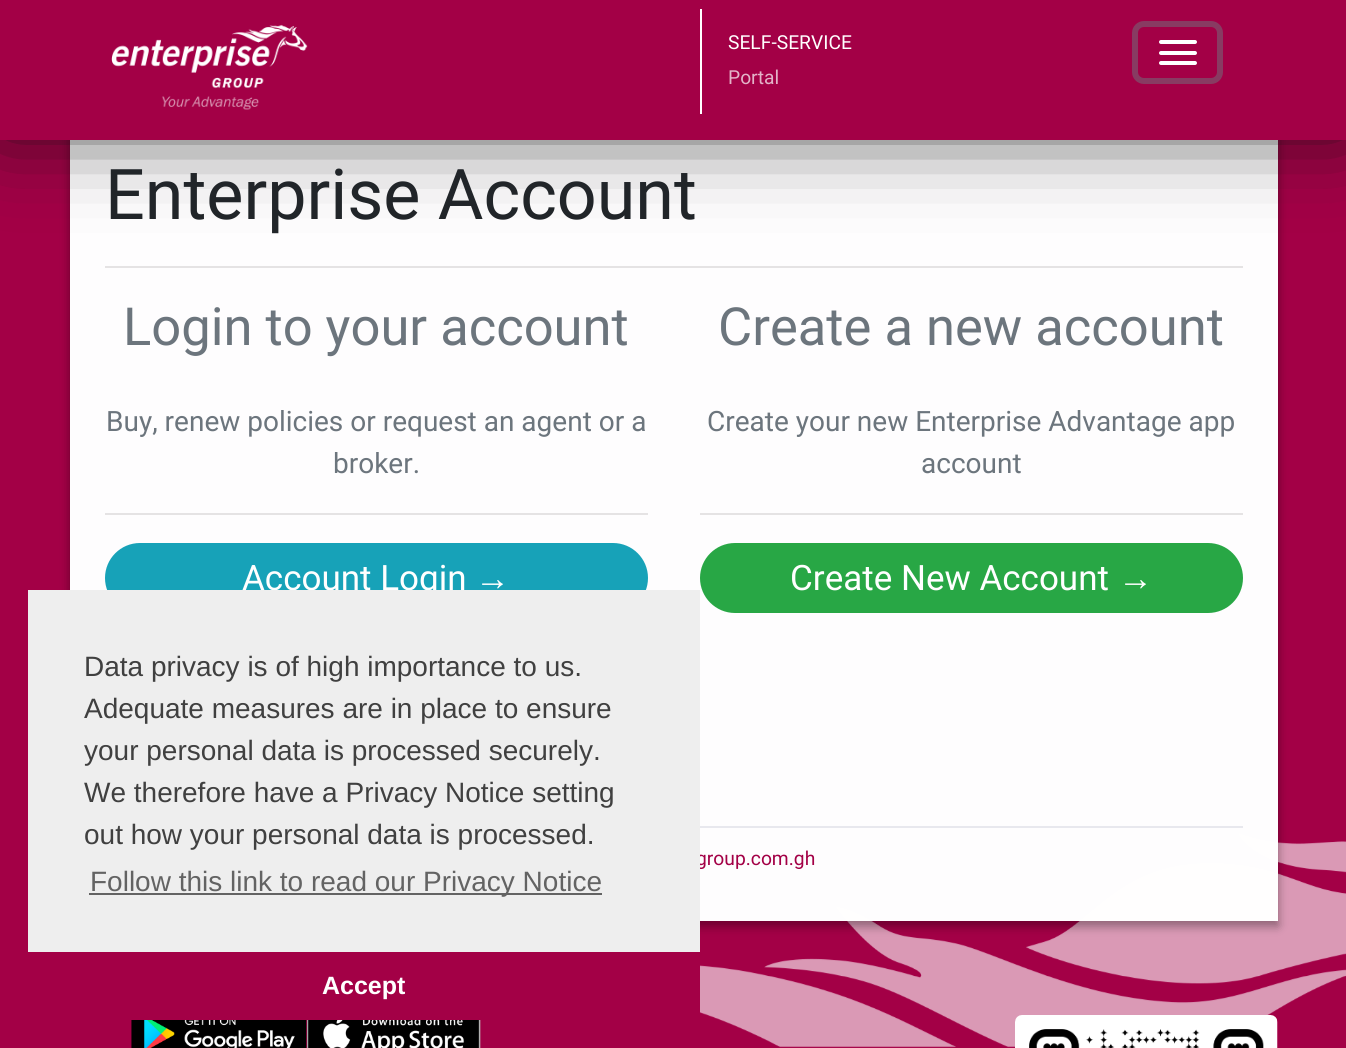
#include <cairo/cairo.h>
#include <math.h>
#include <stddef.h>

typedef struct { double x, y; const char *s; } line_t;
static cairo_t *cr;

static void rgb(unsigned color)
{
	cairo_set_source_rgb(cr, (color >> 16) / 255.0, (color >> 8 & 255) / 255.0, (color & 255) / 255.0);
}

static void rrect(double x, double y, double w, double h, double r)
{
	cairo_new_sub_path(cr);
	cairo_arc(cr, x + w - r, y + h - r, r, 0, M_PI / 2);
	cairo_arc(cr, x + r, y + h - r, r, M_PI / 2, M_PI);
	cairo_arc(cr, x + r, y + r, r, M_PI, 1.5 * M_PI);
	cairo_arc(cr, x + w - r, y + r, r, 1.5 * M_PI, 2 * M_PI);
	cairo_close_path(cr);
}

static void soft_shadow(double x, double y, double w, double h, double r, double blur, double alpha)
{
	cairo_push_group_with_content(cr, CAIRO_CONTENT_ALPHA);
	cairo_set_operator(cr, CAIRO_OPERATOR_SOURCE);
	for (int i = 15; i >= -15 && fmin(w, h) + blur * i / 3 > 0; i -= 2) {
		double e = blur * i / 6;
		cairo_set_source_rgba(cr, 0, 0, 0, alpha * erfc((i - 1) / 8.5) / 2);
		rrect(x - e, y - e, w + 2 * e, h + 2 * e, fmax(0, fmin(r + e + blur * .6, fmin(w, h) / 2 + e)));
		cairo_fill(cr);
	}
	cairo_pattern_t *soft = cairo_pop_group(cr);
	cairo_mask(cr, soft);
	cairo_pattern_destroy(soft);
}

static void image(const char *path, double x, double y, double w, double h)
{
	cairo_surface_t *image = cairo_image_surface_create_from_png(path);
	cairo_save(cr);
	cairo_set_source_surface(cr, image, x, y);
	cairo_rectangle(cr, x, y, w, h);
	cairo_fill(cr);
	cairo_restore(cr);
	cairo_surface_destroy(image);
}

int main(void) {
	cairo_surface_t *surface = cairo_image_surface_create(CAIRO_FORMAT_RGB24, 1346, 1048);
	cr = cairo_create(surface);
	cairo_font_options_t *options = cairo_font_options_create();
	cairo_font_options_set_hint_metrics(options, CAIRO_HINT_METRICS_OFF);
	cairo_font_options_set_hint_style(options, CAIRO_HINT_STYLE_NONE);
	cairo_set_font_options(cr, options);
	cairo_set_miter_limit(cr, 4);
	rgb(0xa30046);
	cairo_paint(cr);
	image("img/2.png", 700, 833, 646, 215);
	cairo_save(cr);
	cairo_set_fill_rule(cr, CAIRO_FILL_RULE_EVEN_ODD);
	cairo_new_path(cr);
	cairo_move_to(cr, 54, 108);
	cairo_line_to(cr, 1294, 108);
	cairo_line_to(cr, 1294, 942);
	cairo_line_to(cr, 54, 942);
	cairo_close_path(cr);
	cairo_move_to(cr, 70, 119);
	cairo_line_to(cr, 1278, 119);
	cairo_line_to(cr, 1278, 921);
	cairo_line_to(cr, 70, 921);
	cairo_close_path(cr);
	cairo_clip(cr);
	rgb(0x000000);
	soft_shadow(70, 124, 1208, 802, 0, 5, 0.23);
	soft_shadow(70, 124, 1208, 802, 0, 5, 0.16);
	cairo_restore(cr);
	cairo_set_source_rgba(cr, 1, 1, 1, 0.99);
	cairo_rectangle(cr, 70, 140, 1208, 781);
	cairo_fill(cr);
	rgb(0x111111);
	soft_shadow(0, -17, 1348, 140, 0, 44, 1);
	rgb(0xa30046);
	cairo_rectangle(cr, 0, 0, 1346, 140);
	cairo_fill(cr);
	image("img/1.png", 111, 24, 197, 86);
	rgb(0xffffff);
	cairo_rectangle(cr, 700, 9, 2, 105);
	cairo_fill(cr);
	rrect(1135, 24, 85, 57, 9);
	rgb(0x883b62);
	cairo_set_line_width(cr, 6);
	cairo_stroke(cr);
	rgb(0xffffff);
	rrect(1159, 40, 38, 4, 2);
	cairo_fill(cr);
	rrect(1159, 51, 38, 4, 2);
	cairo_fill(cr);
	rrect(1159, 61, 38, 4, 2);
	cairo_fill(cr);
	rgb(0xe5e3e4);
	cairo_rectangle(cr, 105, 266, 1138, 2);
	cairo_fill(cr);
	cairo_rectangle(cr, 105, 513, 543, 2);
	cairo_fill(cr);
	rgb(0x17a2b8);
	rrect(106, 544, 541, 68, 34);
	cairo_fill_preserve(cr);
	cairo_set_line_width(cr, 2);
	cairo_stroke(cr);
	rgb(0xe5e3e4);
	cairo_rectangle(cr, 700, 513, 543, 2);
	cairo_fill(cr);
	rgb(0x28a745);
	rrect(701, 544, 541, 68, 34);
	cairo_fill_preserve(cr);
	cairo_stroke(cr);
	rgb(0xe8e8ee);
	cairo_rectangle(cr, 700, 826, 543, 2);
	cairo_fill(cr);
	image("img/3.png", 131, 1020, 176, 28);
	image("img/4.png", 307, 1020, 174, 28);
	image("img/5.png", 1015, 1015, 263, 33);
	cairo_select_font_face(cr, "Roboto", CAIRO_FONT_SLANT_NORMAL, CAIRO_FONT_WEIGHT_NORMAL);
	cairo_set_font_size(cr, 19.25);
	rgb(0xffffff);
	cairo_move_to(cr, 728, 49);
	cairo_show_text(cr, "SELF-SERVICE");
	rgb(0xe3b3c8);
	cairo_move_to(cr, 728, 84);
	cairo_show_text(cr, "Portal");
	cairo_set_font_size(cr, 70);
	rgb(0x212529);
	cairo_move_to(cr, 105, 219);
	cairo_show_text(cr, "Enterprise Account");
	cairo_set_font_size(cr, 52.5);
	rgb(0x6c757d);
	cairo_move_to(cr, 123, 345);
	cairo_show_text(cr, "Login to your account");
	cairo_set_font_size(cr, 28);
	cairo_move_to(cr, 106, 431);
	cairo_show_text(cr, "Buy, renew policies or request an agent or a");
	cairo_move_to(cr, 333, 473);
	cairo_show_text(cr, "broker.");
	cairo_set_font_size(cr, 35);
	rgb(0xffffff);
	cairo_move_to(cr, 242, 590);
	cairo_show_text(cr, "Account Login");
	cairo_select_font_face(cr, "Liberation Sans", CAIRO_FONT_SLANT_NORMAL, CAIRO_FONT_WEIGHT_NORMAL);
	cairo_move_to(cr, 475, 590);
	cairo_show_text(cr, "→");
	cairo_select_font_face(cr, "Roboto", CAIRO_FONT_SLANT_NORMAL, CAIRO_FONT_WEIGHT_NORMAL);
	cairo_set_font_size(cr, 52.5);
	rgb(0x6c757d);
	cairo_move_to(cr, 718, 345);
	cairo_show_text(cr, "Create a new account");
	cairo_set_font_size(cr, 28);
	cairo_move_to(cr, 707, 431);
	cairo_show_text(cr, "Create your new Enterprise Advantage app");
	cairo_move_to(cr, 921, 473);
	cairo_show_text(cr, "account");
	cairo_set_font_size(cr, 35);
	rgb(0xffffff);
	cairo_move_to(cr, 790, 590);
	cairo_show_text(cr, "Create New Account");
	cairo_select_font_face(cr, "Liberation Sans", CAIRO_FONT_SLANT_NORMAL, CAIRO_FONT_WEIGHT_NORMAL);
	cairo_move_to(cr, 1118, 590);
	cairo_show_text(cr, "→");
	cairo_select_font_face(cr, "Roboto", CAIRO_FONT_SLANT_NORMAL, CAIRO_FONT_WEIGHT_NORMAL);
	cairo_set_font_size(cr, 19.25);
	rgb(0xa30046);
	cairo_move_to(cr, 696, 865);
	cairo_show_text(cr, "group.com.gh");
	rgb(0xeeeeee);
	cairo_rectangle(cr, 28, 590, 672, 362);
	cairo_fill(cr);
	cairo_select_font_face(cr, "Liberation Sans", CAIRO_FONT_SLANT_NORMAL, CAIRO_FONT_WEIGHT_NORMAL);
	cairo_set_font_size(cr, 28);
	rgb(0x404040);
	{
		static const line_t items[] = {
			{84, 676, "Data privacy is of high importance to us."},
			{84, 718, "Adequate measures are in place to ensure"},
			{84, 760, "your personal data is processed securely."},
			{84, 802, "We therefore have a Privacy Notice setting"},
			{84, 844, "out how your personal data is processed."},
		};
		for (size_t i = 0; i < sizeof items / sizeof *items; i++) {
			cairo_move_to(cr, items[i].x, items[i].y);
			cairo_show_text(cr, items[i].s);
		}
	}
	rgb(0x636363);
	cairo_rectangle(cr, 89, 893, 513, 2);
	cairo_fill(cr);
	cairo_move_to(cr, 90, 891);
	cairo_show_text(cr, "Follow this link to read our Privacy Notice");
	cairo_select_font_face(cr, "Liberation Sans", CAIRO_FONT_SLANT_NORMAL, CAIRO_FONT_WEIGHT_BOLD);
	cairo_set_font_size(cr, 25);
	rgb(0xffffff);
	cairo_move_to(cr, 322, 994);
	cairo_show_text(cr, "Accept");
	cairo_surface_write_to_png(surface, "page.png");
	cairo_font_options_destroy(options);
	cairo_destroy(cr);
	cairo_surface_destroy(surface);
	return 0;
}
